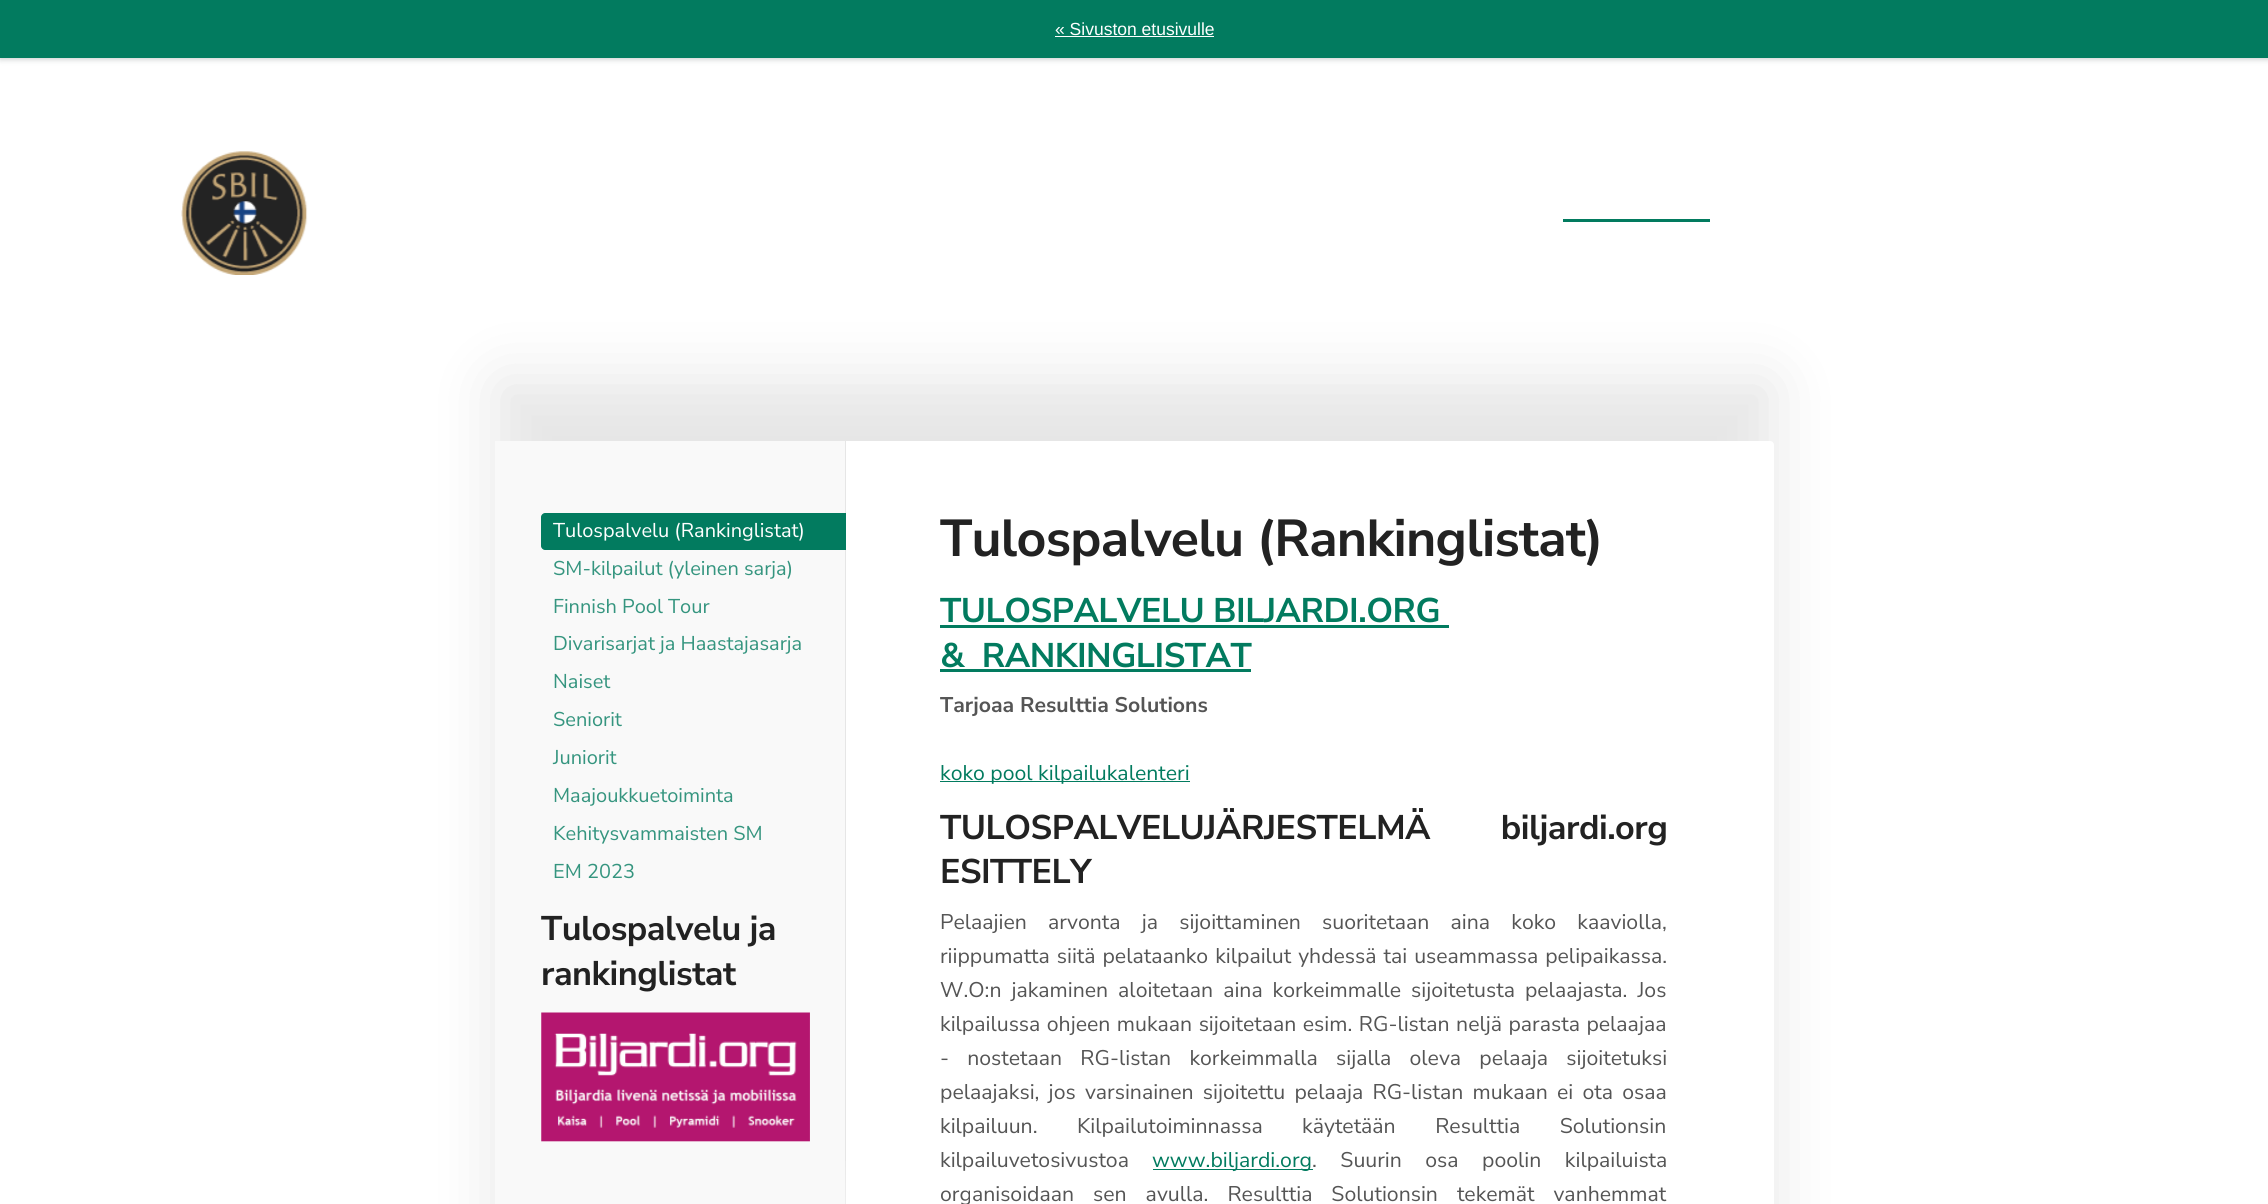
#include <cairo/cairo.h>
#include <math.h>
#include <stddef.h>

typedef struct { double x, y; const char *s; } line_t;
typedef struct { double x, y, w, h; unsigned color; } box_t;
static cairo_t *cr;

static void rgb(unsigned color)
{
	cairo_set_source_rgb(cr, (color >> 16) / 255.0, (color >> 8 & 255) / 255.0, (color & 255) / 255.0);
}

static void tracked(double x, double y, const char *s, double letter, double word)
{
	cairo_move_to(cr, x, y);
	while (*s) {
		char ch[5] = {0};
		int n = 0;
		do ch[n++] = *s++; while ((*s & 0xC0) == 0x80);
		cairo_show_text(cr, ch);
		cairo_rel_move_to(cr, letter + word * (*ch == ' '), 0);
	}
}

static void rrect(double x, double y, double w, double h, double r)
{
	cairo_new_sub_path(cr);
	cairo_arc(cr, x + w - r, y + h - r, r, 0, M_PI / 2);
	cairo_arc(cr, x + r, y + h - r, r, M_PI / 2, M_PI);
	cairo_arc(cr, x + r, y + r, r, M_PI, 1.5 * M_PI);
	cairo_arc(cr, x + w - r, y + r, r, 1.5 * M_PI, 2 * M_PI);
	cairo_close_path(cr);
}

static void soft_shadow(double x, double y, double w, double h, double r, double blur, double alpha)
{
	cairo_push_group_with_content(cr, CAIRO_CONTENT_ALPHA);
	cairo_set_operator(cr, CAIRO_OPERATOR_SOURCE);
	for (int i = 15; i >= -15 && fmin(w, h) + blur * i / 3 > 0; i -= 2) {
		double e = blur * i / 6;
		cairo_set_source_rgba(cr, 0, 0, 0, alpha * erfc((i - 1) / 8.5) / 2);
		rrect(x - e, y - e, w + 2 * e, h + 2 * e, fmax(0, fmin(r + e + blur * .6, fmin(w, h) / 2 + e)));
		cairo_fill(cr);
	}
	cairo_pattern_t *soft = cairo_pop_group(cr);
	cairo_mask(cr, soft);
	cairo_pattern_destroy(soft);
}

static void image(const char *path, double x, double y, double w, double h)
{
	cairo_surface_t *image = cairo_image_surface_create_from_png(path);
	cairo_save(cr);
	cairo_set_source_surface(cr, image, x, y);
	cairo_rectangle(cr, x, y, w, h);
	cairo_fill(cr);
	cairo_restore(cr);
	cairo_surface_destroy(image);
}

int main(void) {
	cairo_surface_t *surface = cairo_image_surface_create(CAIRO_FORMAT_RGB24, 2268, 1204);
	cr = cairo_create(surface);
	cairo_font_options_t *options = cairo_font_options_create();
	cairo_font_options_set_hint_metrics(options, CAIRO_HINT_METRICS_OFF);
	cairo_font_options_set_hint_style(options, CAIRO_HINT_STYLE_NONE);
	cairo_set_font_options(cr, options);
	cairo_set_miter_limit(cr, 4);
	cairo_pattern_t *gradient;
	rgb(0xffffff);
	cairo_paint(cr);
	rgb(0x3b4a4a);
	soft_shadow(0, 1, 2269, 58, 0, 3, 0.3);
	rgb(0x027b5f);
	cairo_rectangle(cr, 0, 0, 2268, 58);
	cairo_fill(cr);
	rgb(0xffffff);
	cairo_rectangle(cr, 1055, 36, 159, 1);
	cairo_fill(cr);
	image("img/1.png", 181, 151, 127, 124);
	rgb(0x027b5f);
	cairo_rectangle(cr, 1563, 219, 147, 3);
	cairo_fill(cr);
	rgb(0x000000);
	soft_shadow(495, 379, 1279, 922, 4, 31, 0.1);
	rgb(0xffffff);
	rrect(495, 441, 1279, 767, 4);
	cairo_fill(cr);
	rgb(0xf9f9f9);
	cairo_rectangle(cr, 495, 441, 350, 763);
	cairo_fill(cr);
	rgb(0xe6e6e6);
	cairo_rectangle(cr, 845, 441, 1, 763);
	cairo_fill(cr);
	rgb(0x027b5f);
	cairo_new_path(cr);
	cairo_move_to(cr, 545, 513);
	cairo_line_to(cr, 846, 513);
	cairo_line_to(cr, 846, 550);
	cairo_line_to(cr, 545, 550);
	cairo_curve_to(cr, 543, 550, 541, 548, 541, 546);
	cairo_line_to(cr, 541, 517);
	cairo_curve_to(cr, 541, 515, 543, 513, 545, 513);
	cairo_close_path(cr);
	cairo_fill(cr);
	image("img/2.png", 541, 1012, 269, 130);
	gradient = cairo_pattern_create_linear(671, 1141, 671, 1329);
	cairo_pattern_add_color_stop_rgba(gradient, 0, 1, 1, 1, 0);
	cairo_pattern_add_color_stop_rgba(gradient, 1, 1, 1, 1, 1);
	cairo_set_source(cr, gradient);
	cairo_pattern_destroy(gradient);
	cairo_rectangle(cr, 845, 1161, 1, 43);
	cairo_fill(cr);
	{
		static const box_t items[] = {
			{940, 625, 509, 3, 0x027b5f},
			{940, 669, 311, 3, 0x027b5f},
			{940, 781, 250, 1, 0x027b5f},
			{1153, 1169, 160, 1, 0x027b5f},
		};
		for (size_t i = 0; i < sizeof items / sizeof *items; i++) {
			rgb(items[i].color);
			cairo_rectangle(cr, items[i].x, items[i].y, items[i].w, items[i].h);
			cairo_fill(cr);
		}
	}
	cairo_select_font_face(cr, "Liberation Sans", CAIRO_FONT_SLANT_NORMAL, CAIRO_FONT_WEIGHT_NORMAL);
	cairo_set_font_size(cr, 17.5);
	rgb(0xffffff);
	cairo_move_to(cr, 1055, 35);
	cairo_show_text(cr, "« Sivuston etusivulle");
	cairo_select_font_face(cr, "Nunito Sans ExtraLight", CAIRO_FONT_SLANT_NORMAL, CAIRO_FONT_WEIGHT_NORMAL);
	cairo_set_font_size(cr, 20);
	cairo_move_to(cr, 553, 537);
	cairo_show_text(cr, "Tulospalvelu (Rankinglistat)");
	rgb(0x35957f);
	{
		static const line_t items[] = {
			{553, 575, "SM-kilpailut (yleinen sarja)"},
			{553, 613, "Finnish Pool Tour"},
			{553, 650, "Divarisarjat ja Haastajasarja"},
			{553, 688, "Naiset"},
			{553, 726, "Seniorit"},
			{553, 764, "Juniorit"},
			{553, 802, "Maajoukkuetoiminta"},
			{553, 840, "Kehitysvammaisten SM"},
			{553, 878, "EM 2023"},
		};
		for (size_t i = 0; i < sizeof items / sizeof *items; i++) {
			cairo_move_to(cr, items[i].x, items[i].y);
			cairo_show_text(cr, items[i].s);
		}
	}
	cairo_select_font_face(cr, "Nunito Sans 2 ExtraLight", CAIRO_FONT_SLANT_NORMAL, CAIRO_FONT_WEIGHT_NORMAL);
	cairo_set_font_size(cr, 34.2);
	rgb(0x222222);
	tracked(541, 940, "Tulospalvelu ja", -0.5, 0);
	tracked(541, 985, "rankinglistat", -0.5, 0);
	cairo_set_font_size(cr, 51.9);
	tracked(940, 556, "Tulospalvelu (Rankinglistat)", -0.75, 0);
	cairo_set_font_size(cr, 34.2);
	rgb(0x027b5f);
	tracked(940, 622, "TULOSPALVELU BILJARDI.ORG", -0.5, 0);
	tracked(940, 667, "&  RANKINGLISTAT", -0.5, 0);
	cairo_set_font_size(cr, 21.25);
	rgb(0x555555);
	cairo_move_to(cr, 940, 712);
	cairo_show_text(cr, "Tarjoaa Resulttia Solutions");
	cairo_select_font_face(cr, "Nunito Sans ExtraLight", CAIRO_FONT_SLANT_NORMAL, CAIRO_FONT_WEIGHT_NORMAL);
	rgb(0x027b5f);
	cairo_move_to(cr, 940, 780);
	cairo_show_text(cr, "koko pool kilpailukalenteri");
	cairo_select_font_face(cr, "Nunito Sans 2 ExtraLight", CAIRO_FONT_SLANT_NORMAL, CAIRO_FONT_WEIGHT_NORMAL);
	cairo_set_font_size(cr, 34.2);
	rgb(0x222222);
	tracked(940, 839, "TULOSPALVELUJÄRJESTELMÄ biljardi.org", -0.5, 62);
	tracked(940, 883, "ESITTELY", -0.5, 0);
	cairo_select_font_face(cr, "Nunito Sans ExtraLight", CAIRO_FONT_SLANT_NORMAL, CAIRO_FONT_WEIGHT_NORMAL);
	cairo_set_font_size(cr, 21.25);
	rgb(0x555555);
	tracked(940, 929, "Pelaajien arvonta ja sijoittaminen suoritetaan aina koko kaaviolla,", 0, 15.75);
	tracked(940, 963, "riippumatta siitä pelataanko kilpailut yhdessä tai useammassa pelipaikassa.", 0, 1.5);
	tracked(940, 997, "W.O:n jakaminen aloitetaan aina korkeimmalle sijoitetusta pelaajasta. Jos", 0, 4.5);
	tracked(940, 1031, "kilpailussa ohjeen mukaan sijoitetaan esim. RG-listan neljä parasta pelaajaa", 0, 1);
	tracked(940, 1065, "- nostetaan RG-listan korkeimmalla sijalla oleva pelaaja sijoitetuksi", 0, 12.75);
	tracked(940, 1099, "pelaajaksi, jos varsinainen sijoitettu pelaaja RG-listan mukaan ei ota osaa", 0, 3.75);
	tracked(940, 1133, "kilpailuun. Kilpailutoiminnassa käytetään Resulttia Solutionsin", 0, 34);
	cairo_move_to(cr, 940, 1167);
	cairo_show_text(cr, "kilpailuvetosivustoa");
	rgb(0x027b5f);
	cairo_move_to(cr, 1152, 1167);
	cairo_show_text(cr, "www.biljardi.org");
	rgb(0x555555);
	tracked(1312, 1167, ". Suurin osa poolin kilpailuista", 0, 18);
	tracked(940, 1201, "organisoidaan sen avulla. Resulttia Solutionsin tekemät vanhemmat", 0, 13.5);
	cairo_surface_write_to_png(surface, "page.png");
	cairo_font_options_destroy(options);
	cairo_destroy(cr);
	cairo_surface_destroy(surface);
	return 0;
}
